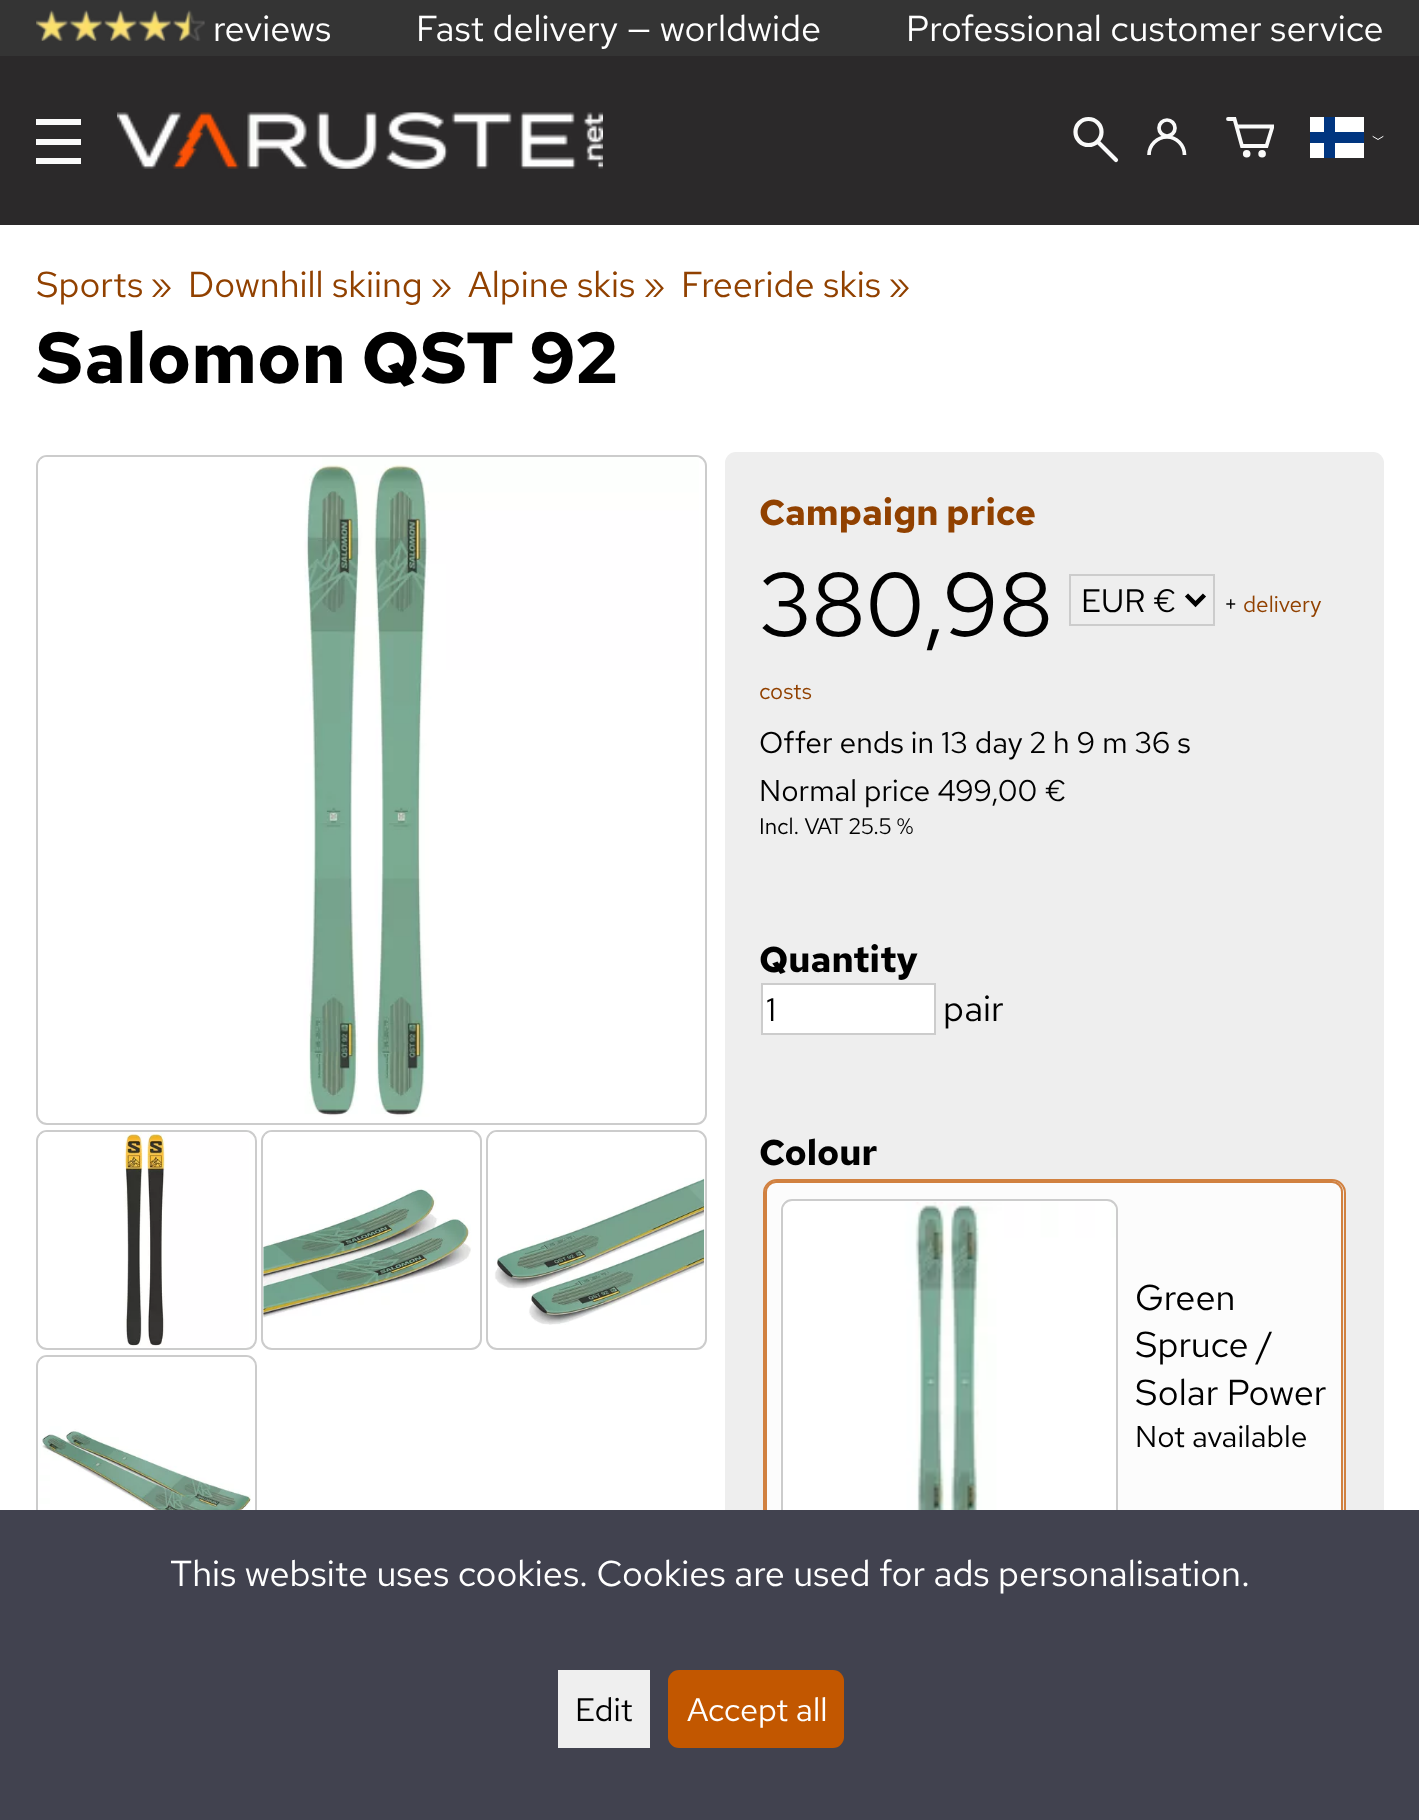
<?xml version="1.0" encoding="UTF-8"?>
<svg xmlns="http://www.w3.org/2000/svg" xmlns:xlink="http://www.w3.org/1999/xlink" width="1419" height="1820">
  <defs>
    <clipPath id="clip1"><rect x="1226" y="117" width="48" height="41" /></clipPath>
  </defs>
  <rect width="100%" height="100%" fill="#ffffff" />
  <rect width="1419" height="56" fill="#343434" />
  <image x="36" y="10" width="169" height="31" xlink:href="image1.png" />
  <rect y="56" width="1419" height="169" fill="#2b292a" />
  <rect x="36" y="119" width="45" height="6" fill="#fafafa" />
  <rect x="36" y="158" width="45" height="6" fill="#fafafa" />
  <rect x="36" y="139" width="45" height="6" fill="#fafafa" />
  <image x="117" y="112" width="486" height="57" xlink:href="image2.png" />
  <path d="M 1116 160 l -18 -18" fill="none" stroke="#fafafa" stroke-width="4.2" stroke-linecap="round" />
  <circle cx="1088.5" cy="132" r="13" fill="none" stroke="#fafafa" stroke-width="4.2" />
  <circle cx="1167" cy="128" r="8" fill="none" stroke="#fafafa" stroke-width="3.7" />
  <path d="M 1149 155 c 0 -10 8 -18 18 -18 c 9.5 0 17.5 8 17.5 18" fill="none" stroke="#fafafa" stroke-width="3.7" />
  <g clip-path="url(#clip1)">
    <path d="M 1236.5 126.5 h 36 l -6 19.5 h -24.5 l -7.5 -27 h -6.5" fill="none" stroke="#fafafa" stroke-width="3.8" stroke-linecap="round" />
  </g>
  <circle cx="1246.7" cy="153.7" r="1.9" fill="none" stroke="#fafafa" stroke-width="3.8" />
  <circle cx="1262.1" cy="153.7" r="1.9" fill="none" stroke="#fafafa" stroke-width="3.8" />
  <rect x="1310" y="117" width="54" height="41" fill="#ffffff" />
  <rect x="1310" y="132" width="54" height="11" fill="#003580" />
  <rect x="1324" y="117" width="11" height="41" fill="#003580" />
  <path d="M 1373 136.5 l 5 3 l 5 -3" fill="none" stroke="#fafafa" stroke-linecap="round" />
  <rect x="37" y="456" width="669" height="668" rx="10" fill="none" stroke="#cccccc" stroke-width="2" />
  <image x="39" y="457" width="660" height="660" xlink:href="image3.png" />
  <rect x="37" y="1131" width="219" height="218" rx="10" fill="none" stroke="#cccccc" stroke-width="2" />
  <image x="39" y="1132" width="210" height="215" xlink:href="image4.png" />
  <rect x="262" y="1131" width="219" height="218" rx="10" fill="none" stroke="#cccccc" stroke-width="2" />
  <image x="263" y="1132" width="211" height="186" xlink:href="image5.png" />
  <rect x="487" y="1131" width="219" height="218" rx="10" fill="none" stroke="#cccccc" stroke-width="2" />
  <image x="489" y="1132" width="216" height="193" xlink:href="image6.png" />
  <rect x="37" y="1356" width="219" height="218" rx="10" fill="none" stroke="#cccccc" stroke-width="2" />
  <image x="39" y="1357" width="212" height="153" xlink:href="image7.png" />
  <rect x="725" y="452" width="659" height="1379" rx="11" fill="#eeeeee" />
  <rect x="1070" y="575" width="144" height="50" fill="none" stroke="#cccccc" stroke-width="2" />
  <path d="M 1186.5 595 l 9 9 l 9 -9" fill="none" stroke="#000000" stroke-width="4.5" />
  <rect x="762" y="984" width="173" height="50" fill="#ffffff" stroke="#cccccc" stroke-width="2" />
  <rect x="766" y="1182" width="576" height="367" rx="10" fill="#fcfcfc" stroke="#d18140" stroke-width="2" />
  <path d="M 791 1199 h 315 c 4 0 7 4 7 9 v 315 c 0 5 -3 9 -7 9 h -315 c -6 0 -11 -4 -11 -9 v -315 c 0 -5 5 -9 11 -9 z" fill="#ffffff" />
  <rect x="782" y="1200" width="335" height="336" rx="10" fill="none" stroke="#cccccc" stroke-width="2" />
  <image x="783" y="1202" width="333" height="308" xlink:href="image8.png" />
  <rect x="764" y="1180" width="581" height="372" rx="13" fill="none" stroke="#d18140" stroke-width="2" />
  <rect y="1510" width="1419" height="310" fill="#41424f" />
  <rect x="558" y="1670" width="92" height="78" fill="#efefef" />
  <rect x="668" y="1670" width="176" height="78" rx="11" fill="#c25700" />
  <text x="213" y="41" style="font-family: Red Hat Text; font-size: 36px; fill: #ffffff">reviews</text>
  <text x="416" y="41" style="font-family: Red Hat Text; font-size: 36px; fill: #ffffff">Fast delivery — worldwide</text>
  <text x="906" y="41" style="font-family: Red Hat Text; font-size: 36px; fill: #ffffff">Professional customer service</text>
  <text x="36" y="297" style="font-family: Red Hat Text; font-size: 36px; fill: #914100">Sports</text>
  <text x="150" y="297" style="font-family: Red Hat Text; font-size: 36px; fill: #914100">»</text>
  <text x="188" y="297" style="font-family: Red Hat Text; font-size: 36px; fill: #914100">Downhill skiing</text>
  <text x="430" y="297" style="font-family: Red Hat Text; font-size: 36px; fill: #914100">»</text>
  <text x="468" y="297" style="font-family: Red Hat Text; font-size: 36px; fill: #914100">Alpine skis</text>
  <text x="643" y="297" style="font-family: Red Hat Text; font-size: 36px; fill: #914100">»</text>
  <text x="681" y="297" style="font-family: Red Hat Text; font-size: 36px; fill: #914100">Freeride skis</text>
  <text x="888" y="297" style="font-family: Red Hat Text; font-size: 36px; fill: #914100">»</text>
  <text x="36" y="383" style="font-family: Red Hat Text; font-size: 72px; font-weight: bold; fill: #000000">Salomon QST 92</text>
  <text x="759" y="525" style="font-family: Red Hat Text; font-size: 36px; font-weight: bold; fill: #914100">Campaign price</text>
  <text x="759" y="636" style="font-family: Red Hat Text; font-size: 90px; fill: #000000">380,98</text>
  <text x="1081" y="612" style="font-family: Red Hat Text; font-size: 32.5px; fill: #000000">EUR €</text>
  <text x="1224" y="612" style="font-family: Red Hat Text; font-size: 22.5px; fill: #000000">+</text>
  <text x="1243" y="612" style="font-family: Red Hat Text; font-size: 22.5px; fill: #914100">delivery</text>
  <text x="759" y="699" style="font-family: Red Hat Text; font-size: 22.5px; fill: #914100">costs</text>
  <text x="759" y="753" style="font-family: Red Hat Text; font-size: 30px; fill: #000000">Offer ends in 13 day 2 h 9 m 36 s</text>
  <text x="759" y="801" style="font-family: Red Hat Text; font-size: 30px; fill: #000000">Normal price 499,00 €</text>
  <text x="759" y="834" style="font-family: Red Hat Text; font-size: 22.5px; fill: #000000">Incl. VAT 25.5 %</text>
  <text x="759" y="972" style="font-family: Red Hat Text; font-size: 36px; font-weight: bold; fill: #000000">Quantity</text>
  <text x="766" y="1021" style="font-family: Red Hat Text; font-size: 32.5px; fill: #000000">1</text>
  <text x="943" y="1021" style="font-family: Red Hat Text; font-size: 36px; fill: #000000">pair</text>
  <text x="759" y="1165" style="font-family: Red Hat Text; font-size: 36px; font-weight: bold; fill: #000000">Colour</text>
  <text x="1135" y="1310" style="font-family: Red Hat Text; font-size: 36px; fill: #000000">Green</text>
  <text x="1135" y="1357" style="font-family: Red Hat Text; font-size: 36px; fill: #000000">Spruce /</text>
  <text x="1135" y="1405" style="font-family: Red Hat Text; font-size: 36px; fill: #000000">Solar Power</text>
  <text x="1135" y="1447" style="font-family: Red Hat Text; font-size: 30px; fill: #000000">Not available</text>
  <text x="170" y="1586" style="font-family: Red Hat Text; font-size: 36px; fill: #ffffff">This website uses cookies. Cookies are used for ads personalisation.</text>
  <text x="575" y="1721" style="font-family: Red Hat Text; font-size: 32.5px; fill: #000000">Edit</text>
  <text x="687" y="1721" style="font-family: Red Hat Text; font-size: 32.5px; fill: #ffffff">Accept all</text>
</svg>
